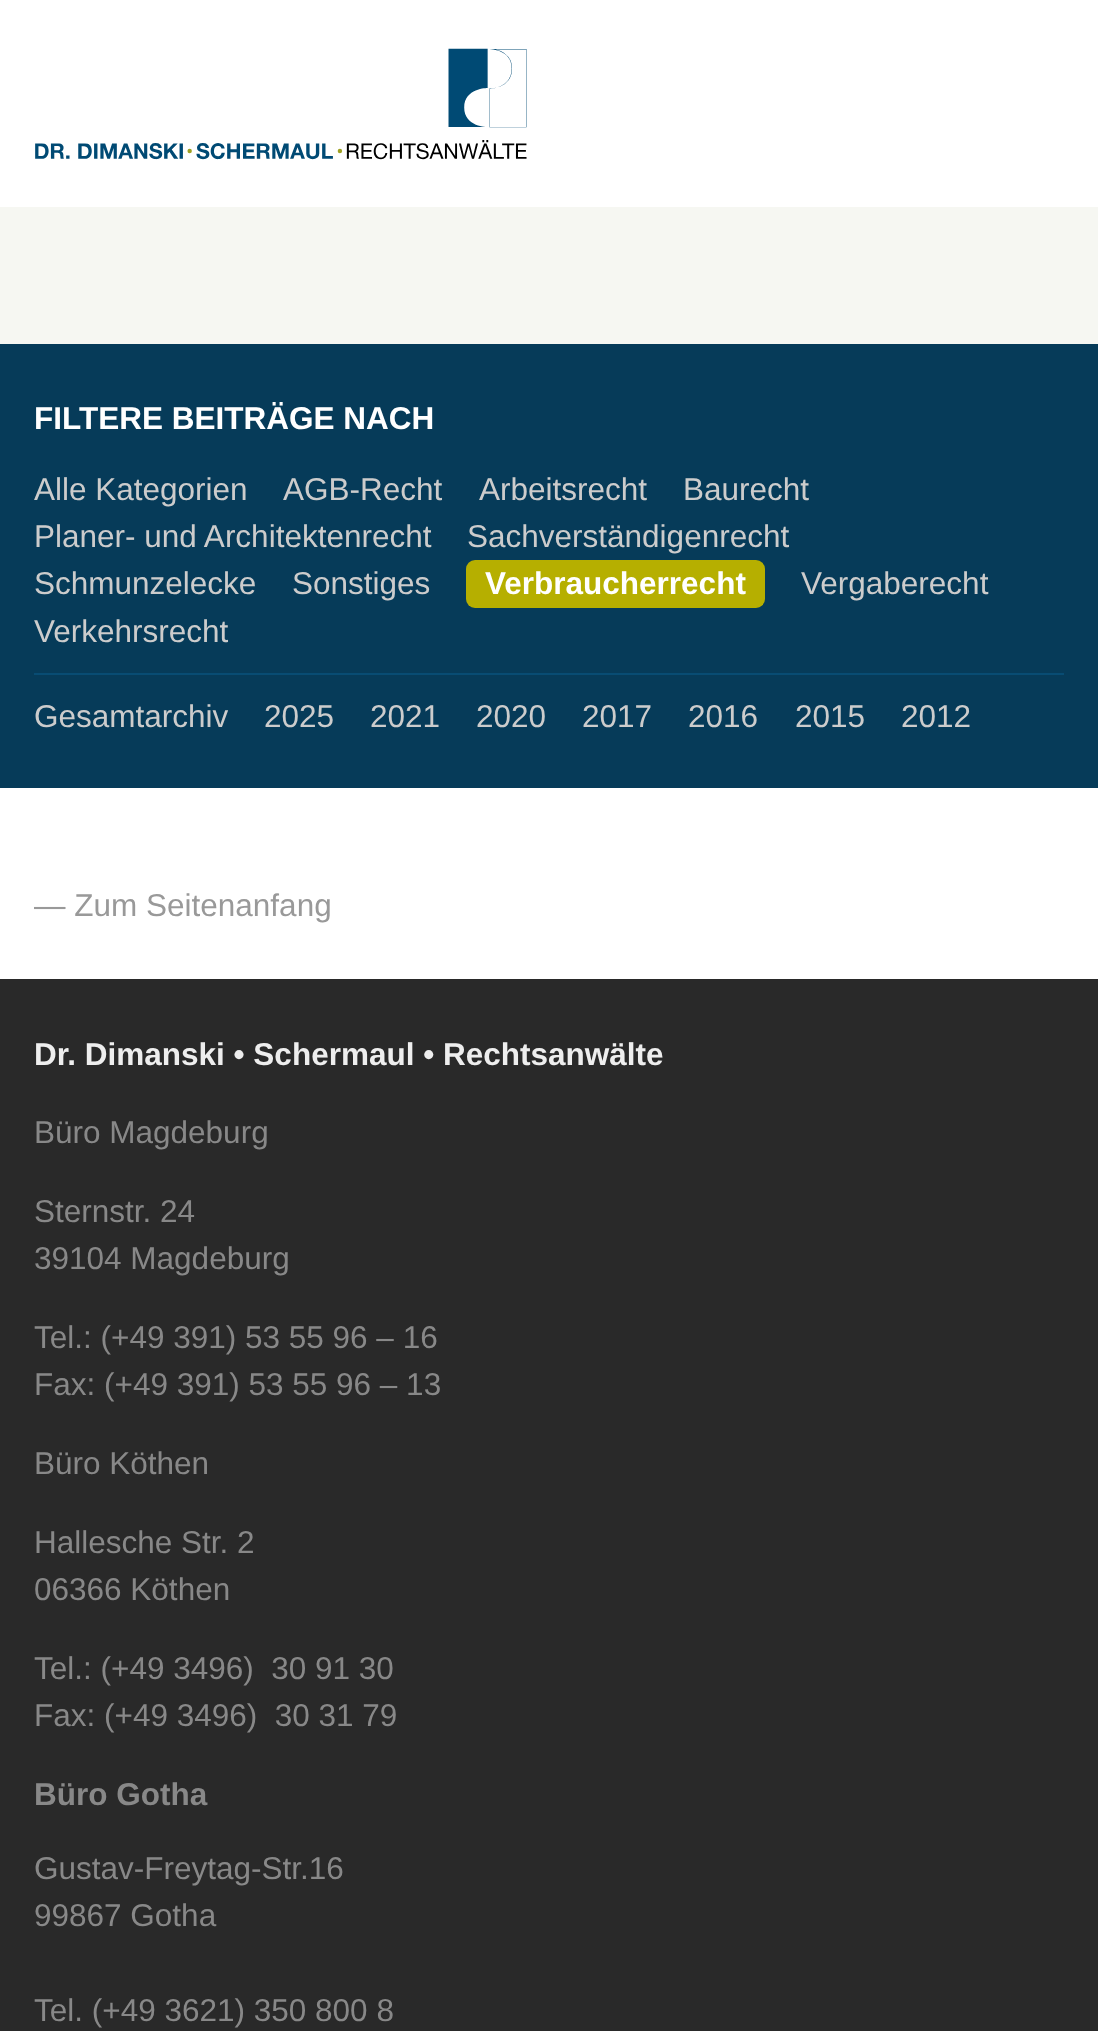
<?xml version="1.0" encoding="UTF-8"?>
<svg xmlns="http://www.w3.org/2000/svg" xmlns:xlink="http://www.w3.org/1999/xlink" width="1098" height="2031">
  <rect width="100%" height="100%" fill="#ffffff" />
  <image x="35" y="48" width="492" height="112" xlink:href="image1.png" />
  <rect y="207" width="1098" height="137" fill="#f6f7f2" />
  <rect y="344" width="1098" height="444" fill="#063b59" />
  <rect x="34" y="673" width="1030" height="2" fill="#084c73" />
  <rect x="466" y="560" width="299" height="48" rx="9" fill="#b6af00" />
  <rect y="979" width="1098" height="1052" fill="#292929" />
  <text x="34" y="429" style="font-family: Liberation Sans; font-size: 31.5px; font-weight: bold; fill: #ffffff">FILTERE BEITRÄGE NACH</text>
  <text x="34" y="500" style="font-family: Liberation Sans; font-size: 31.5px; fill: #cccccc">Alle Kategorien</text>
  <text x="283" y="500" style="font-family: Liberation Sans; font-size: 31.5px; fill: #cccccc">AGB-Recht</text>
  <text x="479" y="500" style="font-family: Liberation Sans; font-size: 31.5px; fill: #cccccc">Arbeitsrecht</text>
  <text x="683" y="500" style="font-family: Liberation Sans; font-size: 31.5px; fill: #cccccc">Baurecht</text>
  <text x="34" y="547" style="font-family: Liberation Sans; font-size: 31.5px; fill: #cccccc">Planer- und Architektenrecht</text>
  <text x="467" y="547" style="font-family: Liberation Sans; font-size: 31.5px; fill: #cccccc">Sachverständigenrecht</text>
  <text x="34" y="594" style="font-family: Liberation Sans; font-size: 31.5px; fill: #cccccc">Schmunzelecke</text>
  <text x="292" y="594" style="font-family: Liberation Sans; font-size: 31.5px; fill: #cccccc">Sonstiges</text>
  <text x="485" y="594" style="font-family: Liberation Sans; font-size: 31.5px; font-weight: bold; fill: #ffffff">Verbraucherrecht</text>
  <text x="801" y="594" style="font-family: Liberation Sans; font-size: 31.5px; fill: #cccccc">Vergaberecht</text>
  <text x="34" y="642" style="font-family: Liberation Sans; font-size: 31.5px; fill: #cccccc">Verkehrsrecht</text>
  <text x="34" y="727" style="font-family: Liberation Sans; font-size: 31.5px; fill: #cccccc">Gesamtarchiv</text>
  <text x="264" y="727" style="font-family: Liberation Sans; font-size: 31.5px; fill: #cccccc">2025</text>
  <text x="370" y="727" style="font-family: Liberation Sans; font-size: 31.5px; fill: #cccccc">2021</text>
  <text x="476" y="727" style="font-family: Liberation Sans; font-size: 31.5px; fill: #cccccc">2020</text>
  <text x="582" y="727" style="font-family: Liberation Sans; font-size: 31.5px; fill: #cccccc">2017</text>
  <text x="688" y="727" style="font-family: Liberation Sans; font-size: 31.5px; fill: #cccccc">2016</text>
  <text x="795" y="727" style="font-family: Liberation Sans; font-size: 31.5px; fill: #cccccc">2015</text>
  <text x="901" y="727" style="font-family: Liberation Sans; font-size: 31.5px; fill: #cccccc">2012</text>
  <text x="34" y="916" style="font-family: Liberation Sans; font-size: 31.5px; fill: #999999">— Zum Seitenanfang</text>
  <text x="34" y="1065" style="font-family: Liberation Sans; font-size: 31.5px; font-weight: bold; fill: #eeeeee">Dr. Dimanski • Schermaul • Rechtsanwälte</text>
  <text x="34" y="1143" style="font-family: Liberation Sans; font-size: 31.5px; fill: #888888">Büro Magdeburg</text>
  <text x="34" y="1222" style="font-family: Liberation Sans; font-size: 31.5px; fill: #888888">Sternstr. 24</text>
  <text x="34" y="1269" style="font-family: Liberation Sans; font-size: 31.5px; fill: #888888">39104 Magdeburg</text>
  <text x="34" y="1348" style="font-family: Liberation Sans; font-size: 31.5px; fill: #888888">Tel.: (+49 391) 53 55 96 – 16</text>
  <text x="34" y="1395" style="font-family: Liberation Sans; font-size: 31.5px; fill: #888888">Fax: (+49 391) 53 55 96 – 13</text>
  <text x="34" y="1474" style="font-family: Liberation Sans; font-size: 31.5px; fill: #888888">Büro Köthen</text>
  <text x="34" y="1553" style="font-family: Liberation Sans; font-size: 31.5px; fill: #888888">Hallesche Str. 2</text>
  <text x="34" y="1600" style="font-family: Liberation Sans; font-size: 31.5px; fill: #888888">06366 Köthen</text>
  <text x="34" y="1679" style="font-family: Liberation Sans; font-size: 31.5px; fill: #888888" xml:space="preserve">Tel.: (+49 3496)  30 91 30</text>
  <text x="34" y="1726" style="font-family: Liberation Sans; font-size: 31.5px; fill: #888888" xml:space="preserve">Fax: (+49 3496)  30 31 79</text>
  <text x="34" y="1805" style="font-family: Liberation Sans; font-size: 31.5px; font-weight: bold; fill: #888888">Büro Gotha</text>
  <text x="34" y="1879" style="font-family: Liberation Sans; font-size: 31.5px; fill: #888888">Gustav-Freytag-Str.16</text>
  <text x="34" y="1926" style="font-family: Liberation Sans; font-size: 31.5px; fill: #888888">99867 Gotha</text>
  <text x="34" y="2021" style="font-family: Liberation Sans; font-size: 31.5px; fill: #888888">Tel. (+49 3621) 350 800 8</text>
</svg>
